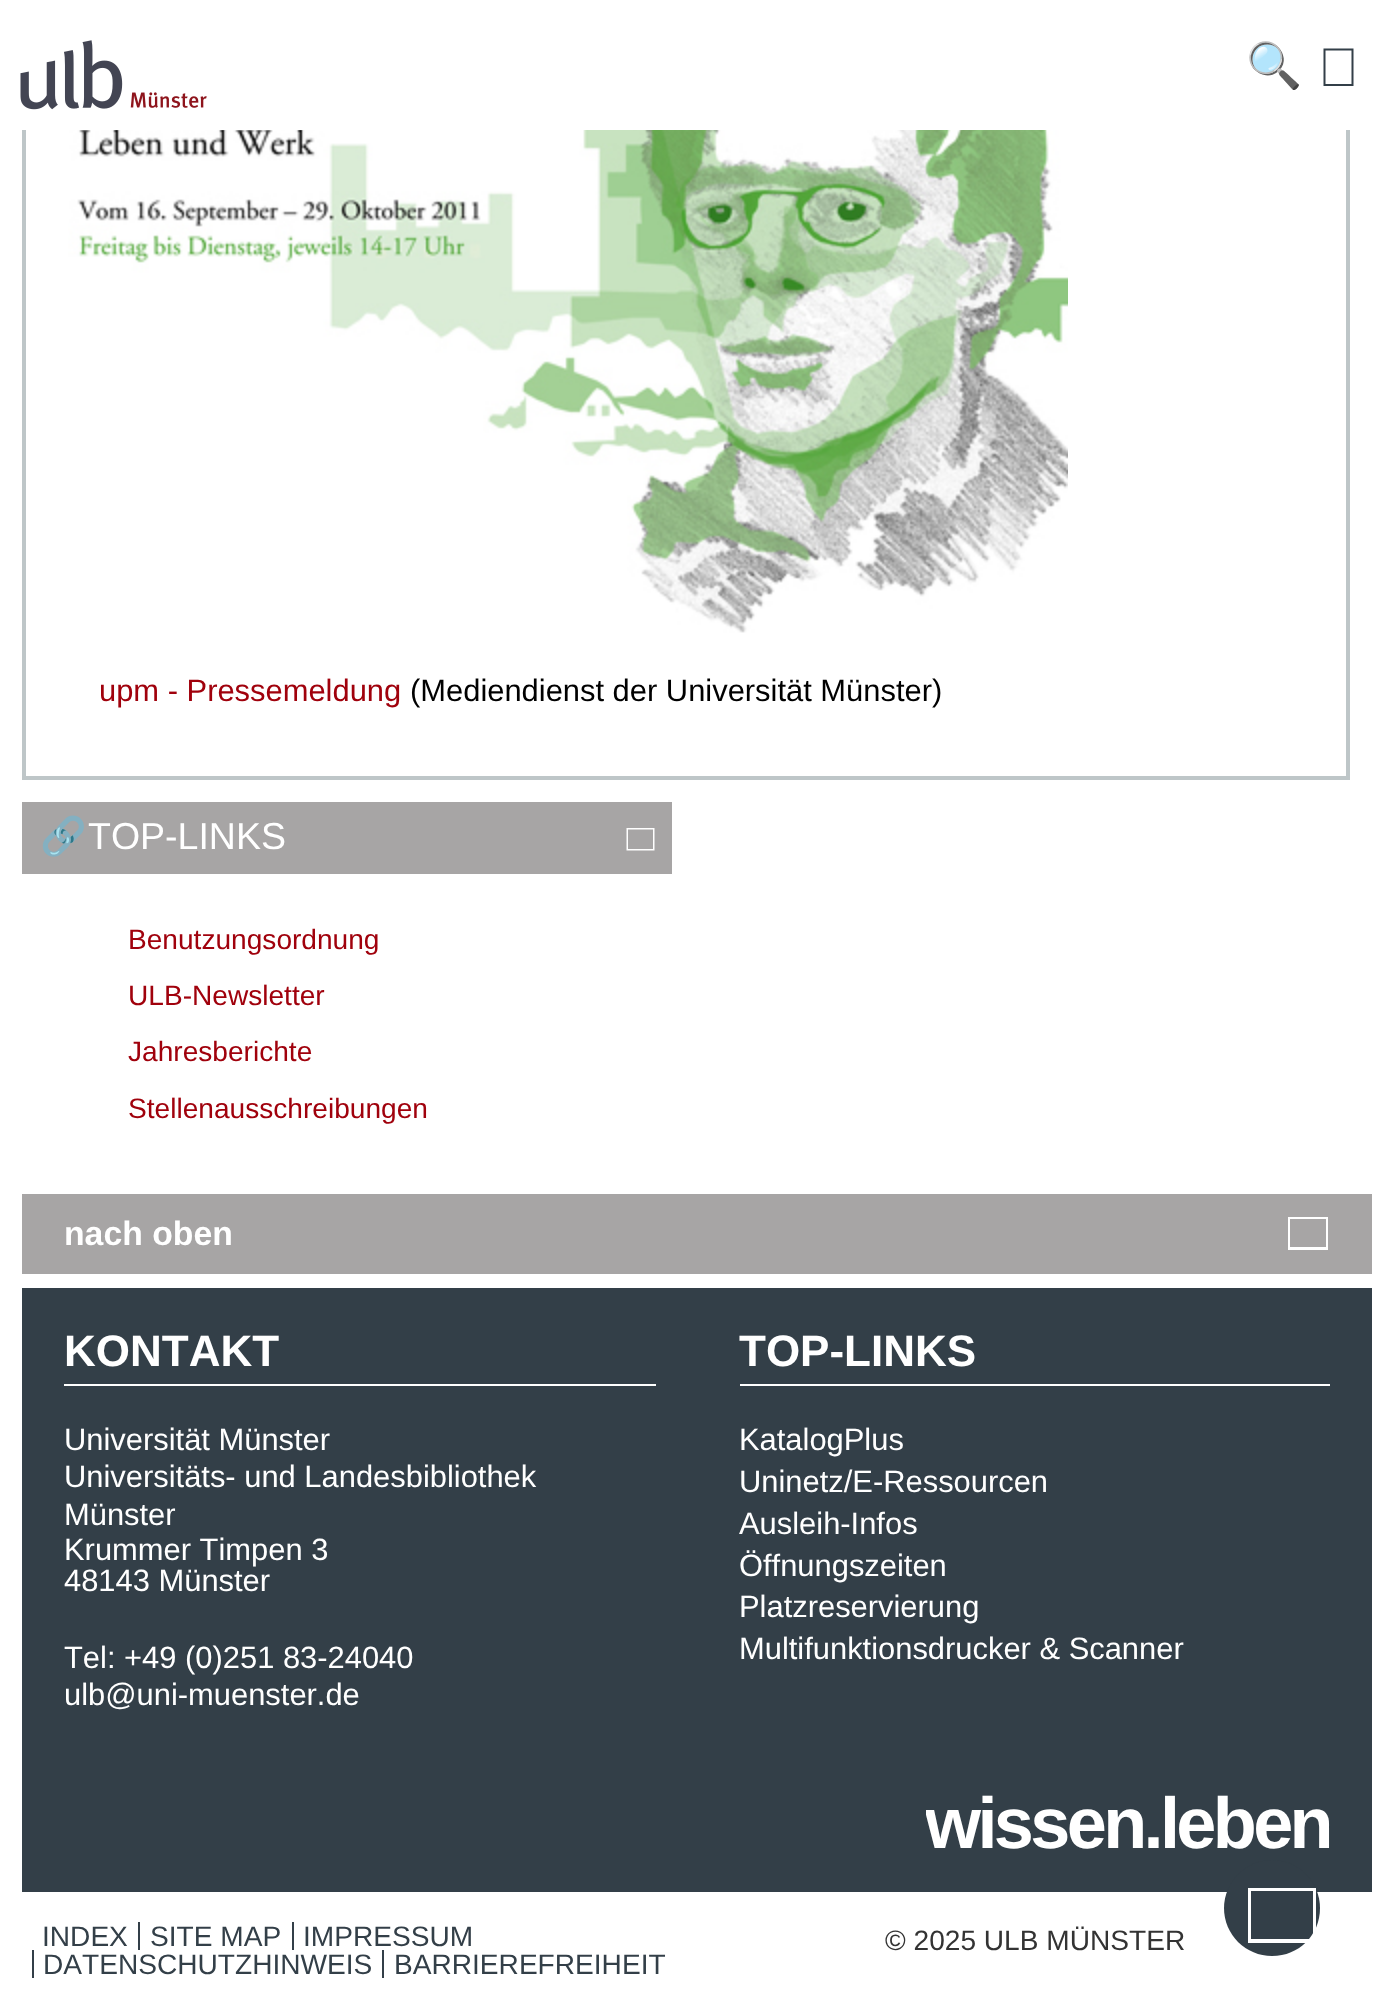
<?xml version="1.0" encoding="UTF-8"?>
<svg xmlns="http://www.w3.org/2000/svg" xmlns:xlink="http://www.w3.org/1999/xlink" width="1390" height="1995">
  <style>*{font-kerning:none!important;font-variant-ligatures:none!important}</style>
  <defs>
    <clipPath id="clip1"><rect x="926" y="1788" width="404" height="72" /></clipPath>
  </defs>
  <rect width="100%" height="100%" fill="#ffffff" />
  <rect x="24" y="-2" width="1324" height="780" fill="none" stroke="#bec6c8" stroke-width="4" />
  <rect x="22" width="1328" height="130" fill="#ffffff" />
  <image x="20" y="40" width="187" height="70" xlink:href="image1.png" />
  <path d="M 1323.5 48.5 h 30 v 37.5 h -30 z m 2 2 v 33.5 h 26 v -33.5 z" fill="#333f48" />
  <image x="68" y="130" width="1000" height="503" xlink:href="image2.png" />
  <rect x="22" y="1288" width="1350" height="604" fill="#333f48" />
  <path d="M 1224 1908 c 0 -26 22 -48 48 -48 c 27 0 48 22 48 48 c 0 27 -21 48 -48 48 c -26 0 -48 -21 -48 -48 z" fill="#333f48" />
  <path d="M 1248 1943 v -55 h 68 v 55 z m 3 -4 h 62 v -48 h -62 z" fill="#ffffff" />
  <rect x="22" y="802" width="650" height="72" fill="#a7a5a5" />
  <path d="M 626.5 850.5 v -22.5 h 28 v 22.5 z m 1.5 -1.5 h 25 v -19.5 h -25 z" fill="#ffffff" />
  <rect x="22" y="1194" width="1350" height="80" fill="#a7a5a5" />
  <path d="M 1288 1250 v -33 h 40 v 33 z m 2 -3 h 36 v -28 h -36 z" fill="#ffffff" />
  <rect x="64" y="1384" width="592" height="2" fill="#ffffff" />
  <rect x="740" y="1384" width="590" height="2" fill="#ffffff" />
  <rect x="138" y="1922" width="2" height="28" fill="#333f48" />
  <rect x="292" y="1922" width="2" height="28" fill="#333f48" />
  <rect x="32" y="1950" width="2" height="28" fill="#333f48" />
  <rect x="382" y="1950" width="2" height="28" fill="#333f48" />
  <text x="1246" y="81" style="font-family: Noto Color Emoji; font-size: 45px; fill: #333f48">🔍</text>
  <text x="68" y="701" style="font-family: Liberation Sans; font-size: 30.9px; fill: #a0010c">‍</text>
  <text x="99" y="701" style="font-family: Liberation Sans; font-size: 30.9px; fill: #a0010c">upm - Pressemeldung</text>
  <text x="410" y="701" style="font-family: Liberation Sans; font-size: 30.9px; fill: #000000">(Mediendienst der Universität Münster)</text>
  <text x="40" y="849" style="font-family: Noto Color Emoji; font-size: 37.5px; fill: #ffffff">🔗</text>
  <text x="88" y="849" style="font-family: Liberation Sans; font-size: 37.5px; fill: #ffffff">TOP-LINKS</text>
  <text x="100" y="949" style="font-family: Liberation Sans; font-size: 28.1px; fill: #a0010c">‍</text>
  <text x="128" y="949" style="font-family: Liberation Sans; font-size: 28.1px; fill: #a0010c">Benutzungsordnung</text>
  <text x="100" y="1005" style="font-family: Liberation Sans; font-size: 28.1px; fill: #a0010c">‍</text>
  <text x="128" y="1005" style="font-family: Liberation Sans; font-size: 28.1px; fill: #a0010c">ULB-Newsletter</text>
  <text x="100" y="1061" style="font-family: Liberation Sans; font-size: 28.1px; fill: #a0010c">‍</text>
  <text x="128" y="1061" style="font-family: Liberation Sans; font-size: 28.1px; fill: #a0010c">Jahresberichte</text>
  <text x="100" y="1118" style="font-family: Liberation Sans; font-size: 28.1px; fill: #a0010c">‍</text>
  <text x="128" y="1118" style="font-family: Liberation Sans; font-size: 28.1px; fill: #a0010c">Stellenausschreibungen</text>
  <text x="64" y="1245" style="font-family: Liberation Sans; font-size: 33.75px; font-weight: bold; fill: #ffffff">nach oben</text>
  <text x="64" y="1366" style="font-family: Liberation Sans; font-size: 44px; font-weight: bold; fill: #ffffff">KONTAKT</text>
  <text x="64" y="1450" style="font-family: Liberation Sans; font-size: 30.9px; fill: #ffffff">Universität Münster</text>
  <text x="64" y="1487" style="font-family: Liberation Sans; font-size: 30.9px; fill: #ffffff">Universitäts- und Landesbibliothek</text>
  <text x="64" y="1525" style="font-family: Liberation Sans; font-size: 30.9px; fill: #ffffff">Münster</text>
  <text x="64" y="1560" style="font-family: Liberation Sans; font-size: 30.9px; fill: #ffffff">Krummer Timpen 3</text>
  <text x="64" y="1591" style="font-family: Liberation Sans; font-size: 30.9px; fill: #ffffff">48143 Münster</text>
  <text x="64" y="1668" style="font-family: Liberation Sans; font-size: 30.9px; fill: #ffffff">Tel: +49 (0)251 83-24040</text>
  <text x="64" y="1705" style="font-family: Liberation Sans; font-size: 30.9px; fill: #ffffff">ulb@uni-muenster.de</text>
  <text x="739" y="1366" style="font-family: Liberation Sans; font-size: 44px; font-weight: bold; fill: #ffffff">TOP-LINKS</text>
  <text x="739" y="1450" style="font-family: Liberation Sans; font-size: 30.9px; fill: #ffffff">KatalogPlus</text>
  <text x="739" y="1492" style="font-family: Liberation Sans; font-size: 30.9px; fill: #ffffff">Uninetz/E-Ressourcen</text>
  <text x="739" y="1534" style="font-family: Liberation Sans; font-size: 30.9px; fill: #ffffff">Ausleih-Infos</text>
  <text x="739" y="1576" style="font-family: Liberation Sans; font-size: 30.9px; fill: #ffffff">Öffnungszeiten</text>
  <text x="739" y="1617" style="font-family: Liberation Sans; font-size: 30.9px; fill: #ffffff">Platzreservierung</text>
  <text x="739" y="1659" style="font-family: Liberation Sans; font-size: 30.9px; fill: #ffffff">Multifunktionsdrucker &amp; Scanner</text>
  <g clip-path="url(#clip1)">
    <text x="925" y="1848" style="font-family: Liberation Sans; font-size: 72px; font-weight: bold; letter-spacing: -3.6px; fill: #ffffff">wissen.leben</text>
  </g>
  <text x="42" y="1946" style="font-family: Liberation Sans; font-size: 28.1px; fill: #333f48">INDEX</text>
  <text x="150" y="1946" style="font-family: Liberation Sans; font-size: 28.1px; fill: #333f48">SITE MAP</text>
  <text x="303" y="1946" style="font-family: Liberation Sans; font-size: 28.1px; fill: #333f48">IMPRESSUM</text>
  <text x="43" y="1974" style="font-family: Liberation Sans; font-size: 28.1px; fill: #333f48">DATENSCHUTZHINWEIS</text>
  <text x="394" y="1974" style="font-family: Liberation Sans; font-size: 28.1px; fill: #333f48">BARRIEREFREIHEIT</text>
  <text x="885" y="1950" style="font-family: Liberation Sans; font-size: 28.1px; fill: #333333">© 2025 ULB MÜNSTER</text>
</svg>
